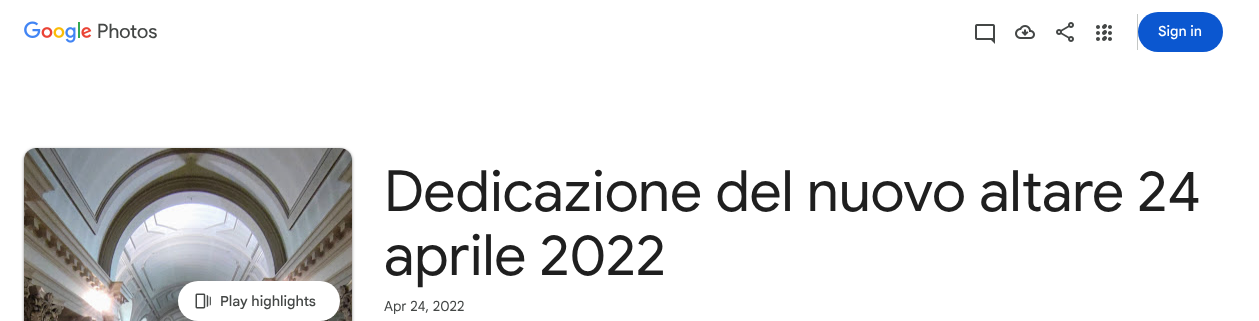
<?xml version="1.0" encoding="UTF-8"?>
<svg xmlns="http://www.w3.org/2000/svg" xmlns:xlink="http://www.w3.org/1999/xlink" width="1259" height="321">
  <rect width="100%" height="100%" fill="#ffffff" />
  <image x="24" y="21" width="68" height="22" xlink:href="image1.png" />
  <image x="975" y="24" width="20" height="20" xlink:href="image2.png" />
  <image x="1015" y="25" width="20" height="14" xlink:href="image3.png" />
  <image x="1056" y="22" width="18" height="20" xlink:href="image4.png" />
  <image x="1103" y="24" width="4" height="16" xlink:href="image5.png" />
  <rect x="1137" y="14" width="1" height="36" fill="#c4c7c5" />
  <rect x="23" y="148" width="330" height="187" rx="13" fill="#000000" fill-opacity="0.15" filter="blur(1.5px)" />
  <rect x="24" y="149" width="328" height="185" rx="12" fill="#000000" fill-opacity="0.3" filter="blur(1px)" />
  <image x="24" y="148" width="328" height="173" xlink:href="image6.png" />
  <rect x="178" y="281" width="162" height="40" rx="20" fill="#ffffff" />
  <image x="195" y="293" width="16" height="16" xlink:href="image7.png" />
  <image x="1096" y="25" width="16" height="16" xlink:href="image8.png" />
  <rect x="1138" y="12" width="85" height="40" rx="20" fill="#0b57d0" />
  <text x="97" y="38" style="font-family: Product Sans; font-size: 20px; fill: #444746">Photos</text>
  <text x="220" y="306" style="font-family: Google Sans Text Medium; font-size: 14px; font-weight: 500; fill: #444746">Play highlights</text>
  <text x="384" y="211" style="font-family: Google Sans; font-size: 57px; fill: #1f1f1f">Dedicazione del nuovo altare 24</text>
  <text x="384" y="275" style="font-family: Google Sans; font-size: 57px; fill: #1f1f1f">aprile 2022</text>
  <text x="384" y="311" style="font-family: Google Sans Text; font-size: 14px; fill: #444746">Apr 24, 2022</text>
  <text x="1158" y="36" style="font-family: Google Sans Text Medium; font-size: 14px; font-weight: 500; fill: #ffffff">Sign in</text>
</svg>
